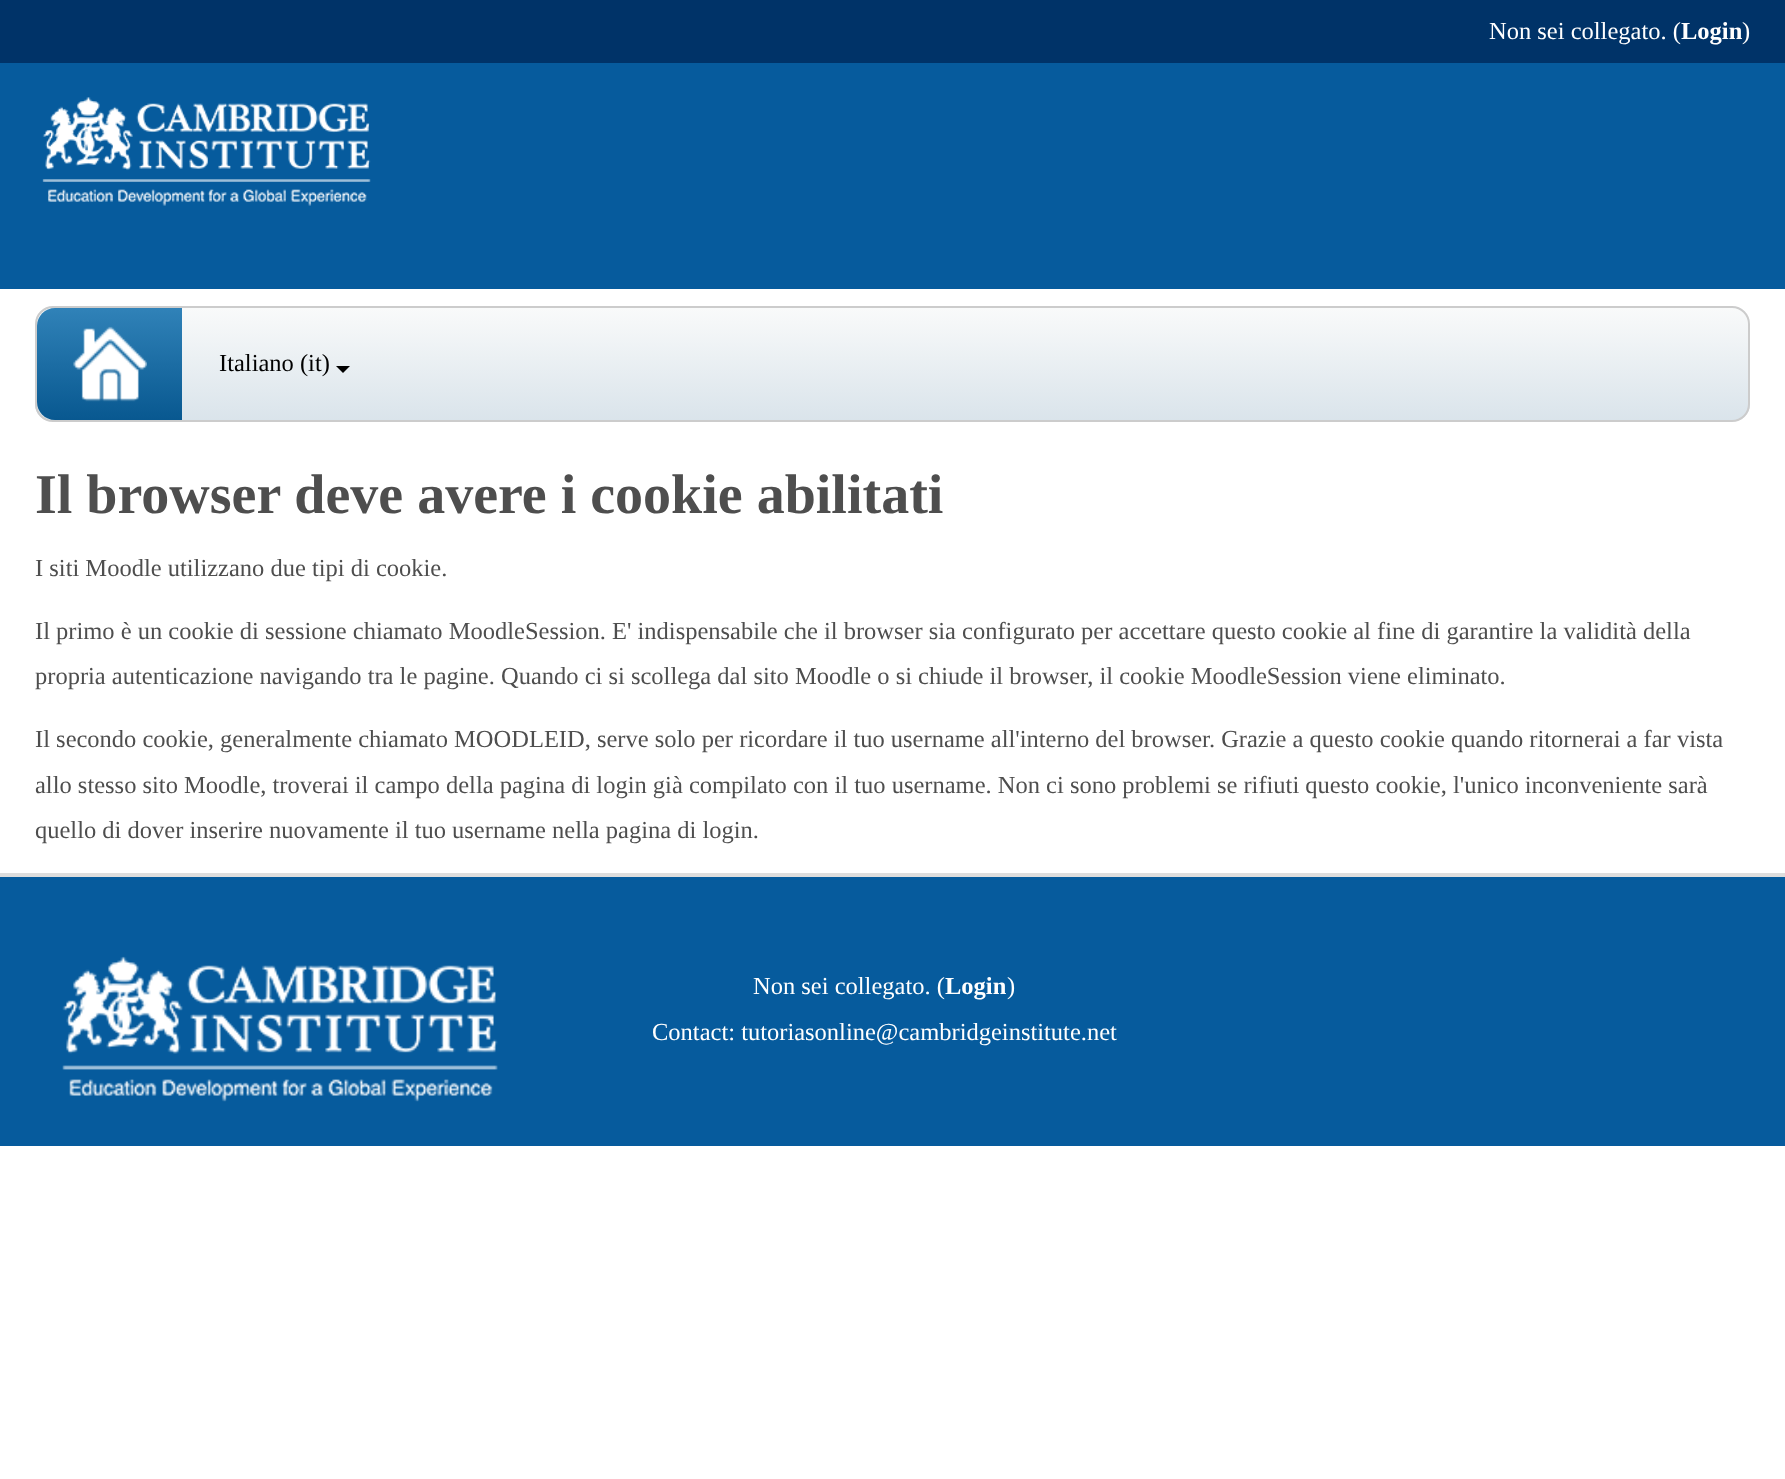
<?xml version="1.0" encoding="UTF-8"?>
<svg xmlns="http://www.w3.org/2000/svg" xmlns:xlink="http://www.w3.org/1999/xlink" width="1785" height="1479">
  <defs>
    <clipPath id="clip1"><rect x="35" y="306" width="1715" height="116" rx="18" /></clipPath>
    <linearGradient id="g1" gradientUnits="userSpaceOnUse" x1="893" y1="308" x2="893" y2="420"><stop offset="0" stop-color="#f9fafa" /><stop offset="1" stop-color="#dae4eb" /></linearGradient>
    <linearGradient id="g2" gradientUnits="userSpaceOnUse" x1="109" y1="308" x2="109" y2="420"><stop offset="0" stop-color="#3082b8" /><stop offset="1" stop-color="#085890" /></linearGradient>
  </defs>
  <rect width="100%" height="100%" fill="#ffffff" />
  <rect y="63" width="1785" height="226" fill="#065b9d" />
  <rect width="1785" height="63" fill="#003368" />
  <image x="42" y="97" width="329" height="109" xlink:href="image1.png" />
  <g clip-path="url(#clip1)">
    <rect x="35" y="308" width="1715" height="112" fill="url(#g1)" />
  </g>
  <rect x="36" y="307" width="1713" height="114" rx="17" fill="none" stroke="#cccccc" stroke-width="2" />
  <path d="M 55 308 h 127 v 112 h -127 c -10 0 -18 -8 -18 -18 v -76 c 0 -10 8 -18 18 -18 z" fill="url(#g2)" />
  <image x="73" y="326" width="74" height="76" xlink:href="image2.png" />
  <path d="M 336 366 h 14 l -7 7 z" fill="#000000" />
  <rect y="877" width="1785" height="269" fill="#065b9d" />
  <rect y="873" width="1785" height="4" fill="#dddddd" />
  <image x="62" y="956" width="436" height="146" xlink:href="image3.png" />
  <text x="1489" y="39" style="font-family: Liberation Serif; font-size: 24.5px; fill: #ffffff">Non sei collegato. (</text>
  <text x="1681" y="39" style="font-family: Liberation Serif; font-size: 24.5px; font-weight: bold; fill: #ffffff">Login</text>
  <text x="1742" y="39" style="font-family: Liberation Serif; font-size: 24.5px; fill: #ffffff">)</text>
  <text x="219" y="371" style="font-family: Liberation Serif; font-size: 24.5px; fill: #000000">Italiano (it)</text>
  <text x="35" y="513" style="font-family: Liberation Serif; font-size: 56px; font-weight: bold; fill: #4e4e4e">Il browser deve avere i cookie abilitati</text>
  <text x="35" y="576" style="font-family: Liberation Serif; font-size: 24.5px; fill: #4e4e4e">I siti Moodle utilizzano due tipi di cookie.</text>
  <text x="35" y="639" style="font-family: Liberation Serif; font-size: 24.5px; fill: #4e4e4e">Il primo è un cookie di sessione chiamato MoodleSession. E' indispensabile che il browser sia configurato per accettare questo cookie al fine di garantire la validità della</text>
  <text x="35" y="684" style="font-family: Liberation Serif; font-size: 24.5px; fill: #4e4e4e">propria autenticazione navigando tra le pagine. Quando ci si scollega dal sito Moodle o si chiude il browser, il cookie MoodleSession viene eliminato.</text>
  <text x="35" y="747" style="font-family: Liberation Serif; font-size: 24.5px; fill: #4e4e4e">Il secondo cookie, generalmente chiamato MOODLEID, serve solo per ricordare il tuo username all'interno del browser. Grazie a questo cookie quando ritornerai a far vista</text>
  <text x="35" y="793" style="font-family: Liberation Serif; font-size: 24.5px; fill: #4e4e4e">allo stesso sito Moodle, troverai il campo della pagina di login già compilato con il tuo username. Non ci sono problemi se rifiuti questo cookie, l'unico inconveniente sarà</text>
  <text x="35" y="838" style="font-family: Liberation Serif; font-size: 24.5px; fill: #4e4e4e">quello di dover inserire nuovamente il tuo username nella pagina di login.</text>
  <text x="753" y="994" style="font-family: Liberation Serif; font-size: 24.5px; fill: #ffffff">Non sei collegato. (</text>
  <text x="945" y="994" style="font-family: Liberation Serif; font-size: 24.5px; font-weight: bold; fill: #ffffff">Login</text>
  <text x="1007" y="994" style="font-family: Liberation Serif; font-size: 24.5px; fill: #ffffff">)</text>
  <text x="652" y="1040" style="font-family: Liberation Serif; font-size: 24.5px; fill: #ffffff">Contact: tutoriasonline@cambridgeinstitute.net</text>
</svg>
